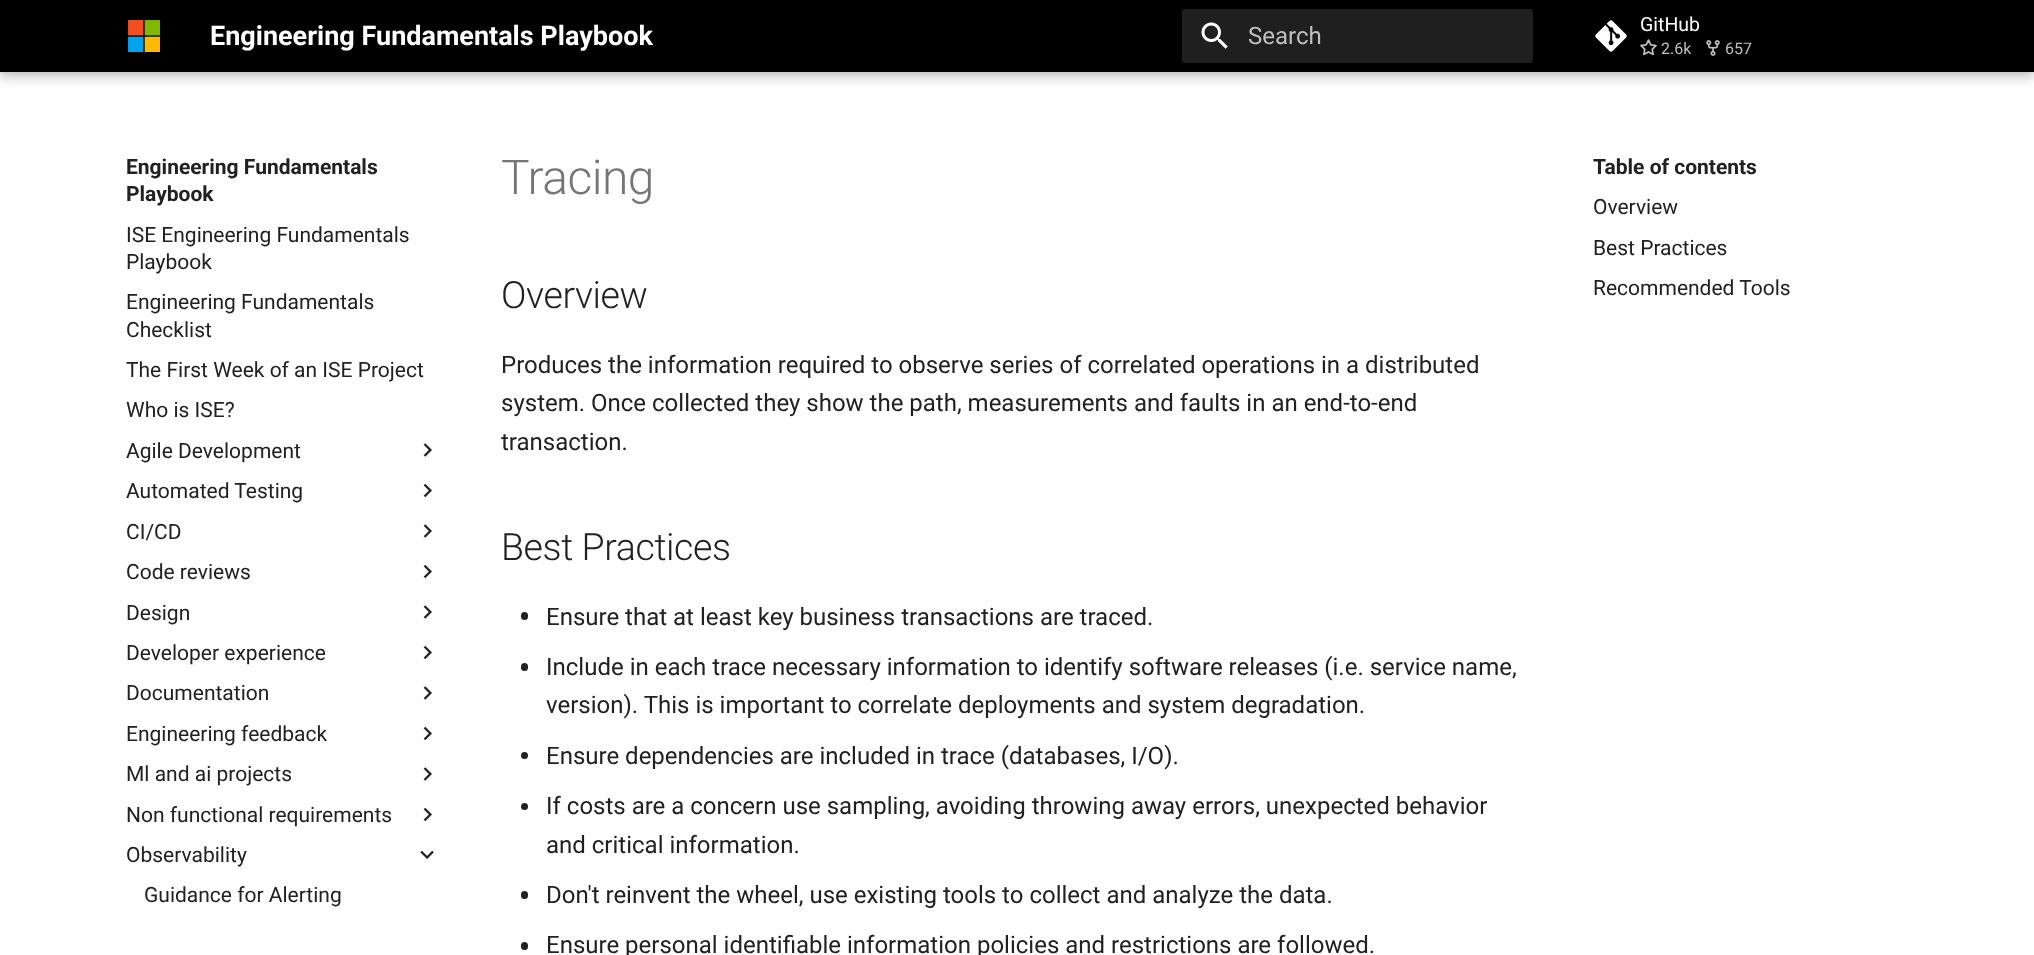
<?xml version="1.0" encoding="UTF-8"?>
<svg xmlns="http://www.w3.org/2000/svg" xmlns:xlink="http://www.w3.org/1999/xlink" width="2034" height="955">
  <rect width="100%" height="100%" fill="#ffffff" />
  <rect y="6" width="2034" height="72" fill="#000000" fill-opacity="0.2" filter="blur(6px)" />
  <rect width="2034" height="72" fill="#000000" fill-opacity="0.1" filter="blur(3px)" />
  <rect width="2034" height="72" fill="#000000" />
  <image x="128" y="20" width="33" height="33" xlink:href="image1.png" />
  <rect x="1182" y="9" width="351" height="54" rx="3" fill="#1f1f1f" />
  <image x="1201" y="22" width="27" height="27" xlink:href="image2.png" />
  <image x="1595" y="20" width="32" height="32" xlink:href="image3.png" />
  <image x="1640" y="39" width="17" height="17" xlink:href="image4.png" />
  <image x="1706" y="40" width="14" height="16" xlink:href="image5.png" />
  <image x="423" y="443" width="9" height="14" xlink:href="image6.png" />
  <image x="423" y="483" width="9" height="15" xlink:href="image7.png" />
  <image x="423" y="524" width="9" height="14" xlink:href="image6.png" />
  <image x="423" y="564" width="9" height="15" xlink:href="image7.png" />
  <image x="423" y="605" width="9" height="14" xlink:href="image6.png" />
  <image x="423" y="645" width="9" height="15" xlink:href="image7.png" />
  <image x="423" y="686" width="9" height="14" xlink:href="image6.png" />
  <image x="423" y="726" width="9" height="15" xlink:href="image7.png" />
  <image x="423" y="767" width="9" height="14" xlink:href="image6.png" />
  <image x="423" y="807" width="9" height="15" xlink:href="image7.png" />
  <image x="420" y="850" width="14" height="9" xlink:href="image8.png" />
  <rect x="521" y="612" width="7" height="8" rx="3.5" fill="#212121" />
  <rect x="521" y="663" width="7" height="8" rx="3.5" fill="#212121" />
  <circle cx="524.5" cy="755.5" r="3.5" fill="#212121" />
  <circle cx="524.5" cy="806.5" r="3.5" fill="#212121" />
  <rect x="521" y="891" width="7" height="8" rx="3.5" fill="#212121" />
  <rect x="521" y="942" width="7" height="8" rx="3.5" fill="#212121" />
  <text x="210" y="45" style="font-family: Roboto; font-size: 27px; font-weight: bold; fill: #ffffff">Engineering Fundamentals Playbook</text>
  <text x="1248" y="44" style="font-family: Roboto; font-size: 24px; fill: #bfbfbf">Search</text>
  <text x="1640" y="31" style="font-family: Roboto; font-size: 19.5px; fill: #ffffff">GitHub</text>
  <text x="1661" y="54" style="font-family: Roboto; font-size: 16px; fill: #bfbfbf">2.6k</text>
  <text x="1725" y="54" style="font-family: Roboto; font-size: 16px; fill: #bfbfbf">657</text>
  <text x="126" y="174" style="font-family: Roboto; font-size: 21px; font-weight: bold; fill: #212121">Engineering Fundamentals</text>
  <text x="126" y="201" style="font-family: Roboto; font-size: 21px; font-weight: bold; fill: #212121">Playbook</text>
  <text x="126" y="242" style="font-family: Roboto; font-size: 21px; fill: #212121">ISE Engineering Fundamentals</text>
  <text x="126" y="269" style="font-family: Roboto; font-size: 21px; fill: #212121">Playbook</text>
  <text x="126" y="309" style="font-family: Roboto; font-size: 21px; fill: #212121">Engineering Fundamentals</text>
  <text x="126" y="337" style="font-family: Roboto; font-size: 21px; fill: #212121">Checklist</text>
  <text x="126" y="377" style="font-family: Roboto; font-size: 21px; fill: #212121">The First Week of an ISE Project</text>
  <text x="126" y="417" style="font-family: Roboto; font-size: 21px; fill: #212121">Who is ISE?</text>
  <text x="126" y="458" style="font-family: Roboto; font-size: 21px; fill: #212121">Agile Development</text>
  <text x="126" y="498" style="font-family: Roboto; font-size: 21px; fill: #212121">Automated Testing</text>
  <text x="126" y="539" style="font-family: Roboto; font-size: 21px; fill: #212121">CI/CD</text>
  <text x="126" y="579" style="font-family: Roboto; font-size: 21px; fill: #212121">Code reviews</text>
  <text x="126" y="620" style="font-family: Roboto; font-size: 21px; fill: #212121">Design</text>
  <text x="126" y="660" style="font-family: Roboto; font-size: 21px; fill: #212121">Developer experience</text>
  <text x="126" y="700" style="font-family: Roboto; font-size: 21px; fill: #212121">Documentation</text>
  <text x="126" y="741" style="font-family: Roboto; font-size: 21px; fill: #212121">Engineering feedback</text>
  <text x="126" y="781" style="font-family: Roboto; font-size: 21px; fill: #212121">Ml and ai projects</text>
  <text x="126" y="822" style="font-family: Roboto; font-size: 21px; fill: #212121">Non functional requirements</text>
  <text x="126" y="862" style="font-family: Roboto; font-size: 21px; fill: #212121">Observability</text>
  <text x="144" y="902" style="font-family: Roboto; font-size: 21px; fill: #212121">Guidance for Alerting</text>
  <text x="501" y="194" style="font-family: Roboto; font-size: 48px; font-weight: 300; letter-spacing: -0.5px; fill: #757575">Tracing</text>
  <text x="501" y="308" style="font-family: Roboto; font-size: 37.5px; font-weight: 300; letter-spacing: -0.4px; fill: #212121">Overview</text>
  <text x="501" y="373" style="font-family: Roboto; font-size: 24px; fill: #212121">Produces the information required to observe series of correlated operations in a distributed</text>
  <text x="501" y="411" style="font-family: Roboto; font-size: 24px; fill: #212121">system. Once collected they show the path, measurements and faults in an end-to-end</text>
  <text x="501" y="450" style="font-family: Roboto; font-size: 24px; fill: #212121">transaction.</text>
  <text x="501" y="560" style="font-family: Roboto; font-size: 37.5px; font-weight: 300; letter-spacing: -0.4px; fill: #212121">Best Practices</text>
  <text x="546" y="625" style="font-family: Roboto; font-size: 24px; fill: #212121">Ensure that at least key business transactions are traced.</text>
  <text x="546" y="675" style="font-family: Roboto; font-size: 24px; fill: #212121">Include in each trace necessary information to identify software releases (i.e. service name,</text>
  <text x="546" y="713" style="font-family: Roboto; font-size: 24px; fill: #212121">version). This is important to correlate deployments and system degradation.</text>
  <text x="546" y="764" style="font-family: Roboto; font-size: 24px; fill: #212121">Ensure dependencies are included in trace (databases, I/O).</text>
  <text x="546" y="814" style="font-family: Roboto; font-size: 24px; fill: #212121">If costs are a concern use sampling, avoiding throwing away errors, unexpected behavior</text>
  <text x="546" y="853" style="font-family: Roboto; font-size: 24px; fill: #212121">and critical information.</text>
  <text x="546" y="903" style="font-family: Roboto; font-size: 24px; fill: #212121">Don't reinvent the wheel, use existing tools to collect and analyze the data.</text>
  <text x="546" y="953" style="font-family: Roboto; font-size: 24px; fill: #212121">Ensure personal identifiable information policies and restrictions are followed.</text>
  <text x="1593" y="174" style="font-family: Roboto; font-size: 21px; font-weight: bold; fill: #212121">Table of contents</text>
  <text x="1593" y="214" style="font-family: Roboto; font-size: 21px; fill: #212121">Overview</text>
  <text x="1593" y="255" style="font-family: Roboto; font-size: 21px; fill: #212121">Best Practices</text>
  <text x="1593" y="295" style="font-family: Roboto; font-size: 21px; fill: #212121">Recommended Tools</text>
</svg>
